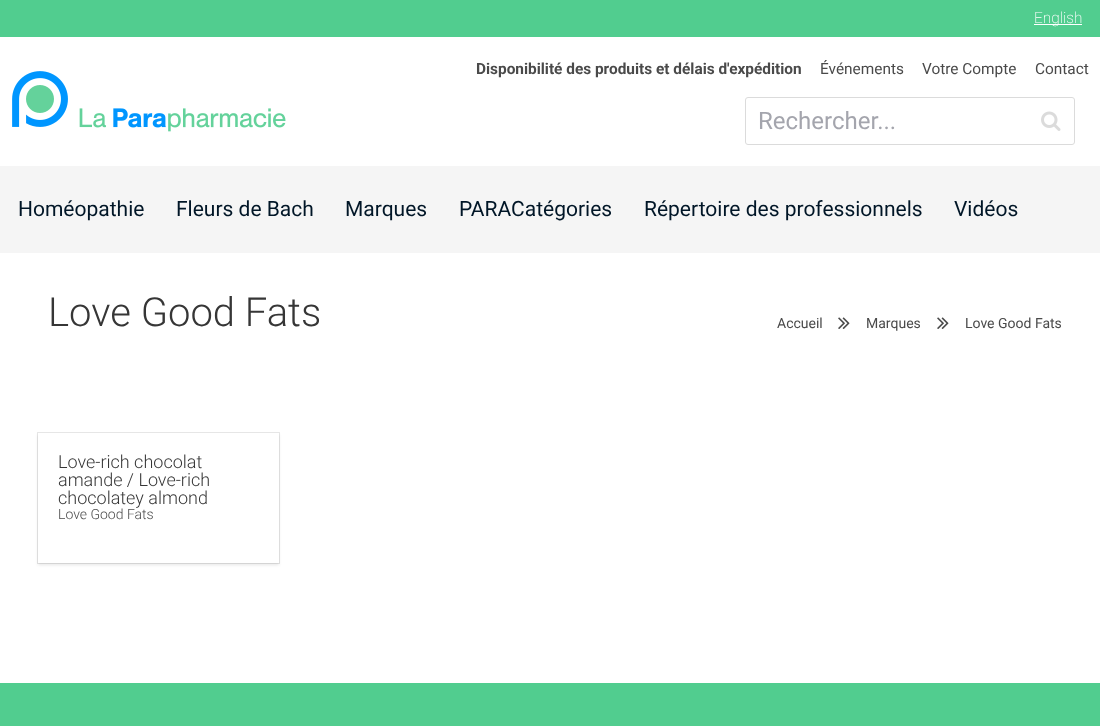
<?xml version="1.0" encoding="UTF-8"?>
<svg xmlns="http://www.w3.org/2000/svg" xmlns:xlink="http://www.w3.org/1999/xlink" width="1100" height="726">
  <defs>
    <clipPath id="clip1"><path d="M 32 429 h 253 v 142 h -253 z m 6 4 h 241 v 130 h -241 z" clip-rule="evenodd" /></clipPath>
  </defs>
  <rect width="100%" height="100%" fill="#ffffff" />
  <rect width="1100" height="37" fill="#51cd8f" />
  <rect x="1034" y="24" width="48" height="1" fill="#ffffff" />
  <image x="12" y="71" width="274" height="61" xlink:href="image1.png" />
  <rect x="745.5" y="97.5" width="329" height="47" rx="2.5" fill="none" stroke="#dbdbdb" />
  <image x="1041" y="111" width="20" height="20" xlink:href="image2.png" />
  <rect y="166" width="1100" height="87" fill="#f5f5f5" />
  <image x="838" y="317" width="12" height="12" xlink:href="image3.png" />
  <image x="937" y="317" width="12" height="12" xlink:href="image3.png" />
  <rect x="37.5" y="432.5" width="242" height="131" fill="none" stroke="#e7e7e7" />
  <g clip-path="url(#clip1)">
    <rect x="38" y="435" width="241" height="130" fill="#0a0a0a" fill-opacity="0.1" filter="blur(1.5px)" />
  </g>
  <rect y="683" width="1100" height="43" fill="#51cd8f" />
  <text x="1034" y="23" style="font-family: Roboto; font-size: 15.4px; font-weight: 200; fill: #ffffff">English</text>
  <text x="476" y="74" style="font-family: Roboto; font-size: 15.4px; font-weight: bold; fill: #4a4a4a">Disponibilité des produits et délais d'expédition</text>
  <text x="820" y="74" style="font-family: Roboto; font-size: 15.4px; fill: #4a4a4a">Événements</text>
  <text x="922" y="74" style="font-family: Roboto; font-size: 15.4px; fill: #4a4a4a">Votre Compte</text>
  <text x="1035" y="74" style="font-family: Roboto; font-size: 15.4px; fill: #4a4a4a">Contact</text>
  <text x="758" y="129" style="font-family: Roboto; font-size: 24px; fill: #a4a5ad">Rechercher...</text>
  <text x="18" y="216" style="font-family: Roboto; font-size: 21px; fill: #011627">Homéopathie</text>
  <text x="176" y="216" style="font-family: Roboto; font-size: 21px; fill: #011627">Fleurs de Bach</text>
  <text x="345" y="216" style="font-family: Roboto; font-size: 21px; fill: #011627">Marques</text>
  <text x="459" y="216" style="font-family: Roboto; font-size: 21px; fill: #011627">PARACatégories</text>
  <text x="644" y="216" style="font-family: Roboto; font-size: 21px; fill: #011627">Répertoire des professionnels</text>
  <text x="954" y="216" style="font-family: Roboto; font-size: 21px; fill: #011627">Vidéos</text>
  <text x="48" y="326" style="font-family: Roboto; font-size: 40px; font-weight: 300; fill: #363636">Love Good Fats</text>
  <text x="777" y="328" style="font-family: Roboto; font-size: 14px; fill: #4a4a4a">Accueil</text>
  <text x="866" y="328" style="font-family: Roboto; font-size: 14px; fill: #4a4a4a">Marques</text>
  <text x="965" y="328" style="font-family: Roboto; font-size: 14px; fill: #4a4a4a">Love Good Fats</text>
  <text x="58" y="468" style="font-family: Roboto; font-size: 18px; font-weight: 300; fill: #363636">Love-rich chocolat</text>
  <text x="58" y="486" style="font-family: Roboto; font-size: 18px; font-weight: 300; fill: #363636">amande / Love-rich</text>
  <text x="58" y="504" style="font-family: Roboto; font-size: 18px; font-weight: 300; fill: #363636">chocolatey almond</text>
  <text x="58" y="519" style="font-family: Roboto; font-size: 14px; font-weight: 300; fill: #4a4a4a">Love Good Fats</text>
</svg>
